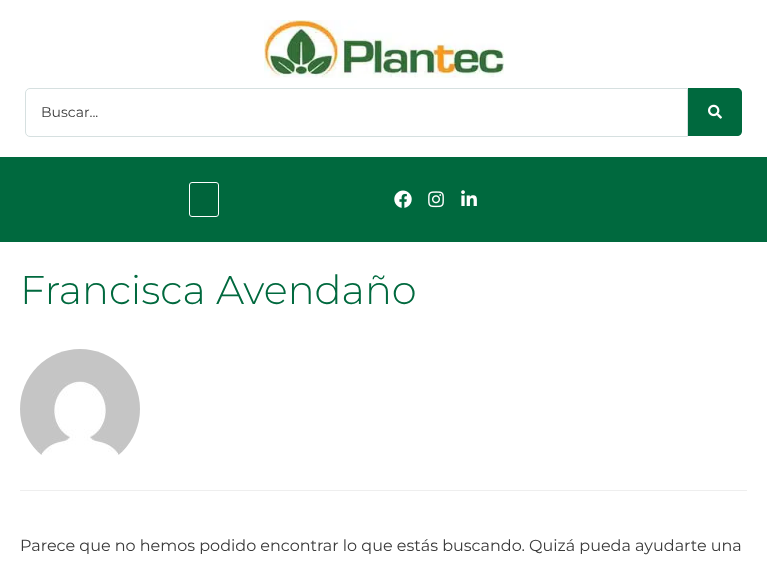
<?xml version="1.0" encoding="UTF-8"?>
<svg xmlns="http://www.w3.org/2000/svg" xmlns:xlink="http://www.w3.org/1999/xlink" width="767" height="566">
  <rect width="100%" height="100%" fill="#ffffff" />
  <image x="264" y="20" width="240" height="58" xlink:href="image1.png" />
  <path d="M 30 88.5 h 657.5 v 48 h -657.5 c -2.5 0 -4.5 -2 -4.5 -4.5 v -39 c 0 -2.5 2 -4.5 4.5 -4.5 z" fill="none" stroke="#d6e0e0" />
  <path d="M 688 88 h 49 c 3 0 5 2 5 5 v 38 c 0 3 -2 5 -5 5 h -49 z" fill="#00693e" />
  <image x="708" y="104" width="14" height="15" xlink:href="image2.png" />
  <rect y="157" width="767" height="85" fill="#00693e" />
  <rect x="189.5" y="182.5" width="29" height="34" rx="2.5" fill="#00643b" stroke="#ffffff" />
  <image x="394" y="190" width="18" height="18" xlink:href="image3.png" />
  <image x="428" y="191" width="16" height="17" xlink:href="image4.png" />
  <image x="461" y="190" width="16" height="16" xlink:href="image5.png" />
  <rect x="20" y="490" width="727" height="1" fill="#eeeeee" />
  <image x="20" y="349" width="120" height="106" xlink:href="image6.png" />
  <text x="41" y="117" style="font-family: Montserrat; font-size: 14px; fill: #3a3a3a">Buscar...</text>
  <text x="20" y="304" style="font-family: Montserrat; font-size: 40px; font-weight: 300; fill: #00693e">Francisca Avendaño</text>
  <text x="20" y="551" style="font-family: Montserrat; font-size: 16px; fill: #3a3a3a">Parece que no hemos podido encontrar lo que estás buscando. Quizá pueda ayudarte una</text>
</svg>
